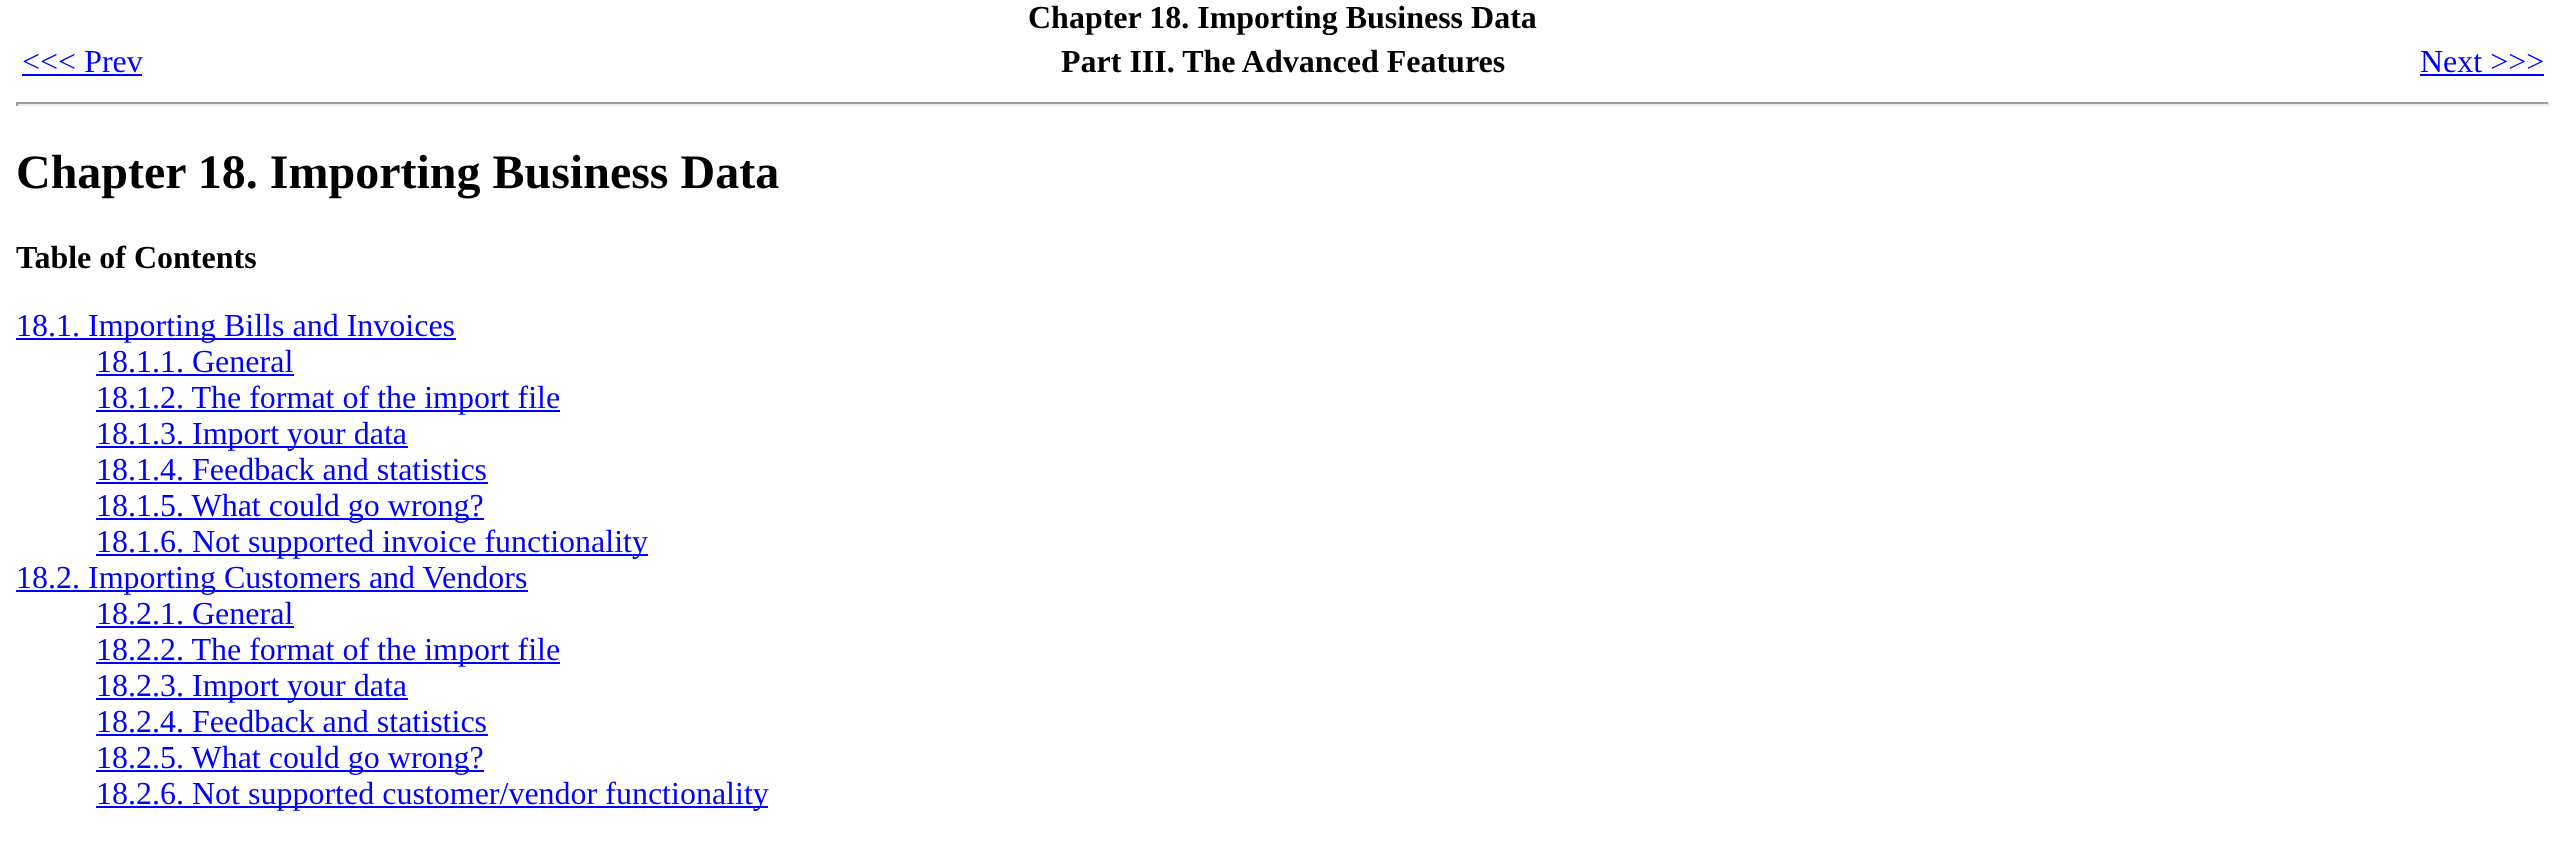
<?xml version="1.0" encoding="UTF-8"?>
<svg xmlns="http://www.w3.org/2000/svg" xmlns:xlink="http://www.w3.org/1999/xlink" width="2566" height="844">
  <rect width="100%" height="100%" fill="#ffffff" />
  <rect x="22" y="74" width="120" height="2" fill="#0000ff" />
  <rect x="2420" y="74" width="124" height="2" fill="#0000ff" />
  <rect x="16" y="102" width="2534" height="2" fill="#9f9f9f" />
  <rect x="2548" y="102" width="2" height="4" fill="#eeeeee" />
  <rect x="16" y="104" width="2534" height="2" fill="#eeeeee" />
  <rect x="16" y="102" width="2" height="4" fill="#9f9f9f" />
  <rect x="16" y="338" width="440" height="2" fill="#0000ff" />
  <rect x="96" y="374" width="198" height="2" fill="#0000ff" />
  <rect x="96" y="410" width="464" height="2" fill="#0000ff" />
  <rect x="96" y="446" width="312" height="2" fill="#0000ff" />
  <rect x="96" y="482" width="392" height="2" fill="#0000ff" />
  <rect x="96" y="518" width="388" height="2" fill="#0000ff" />
  <rect x="96" y="554" width="552" height="2" fill="#0000ff" />
  <rect x="16" y="590" width="512" height="2" fill="#0000ff" />
  <rect x="96" y="626" width="198" height="2" fill="#0000ff" />
  <rect x="96" y="662" width="464" height="2" fill="#0000ff" />
  <rect x="96" y="698" width="312" height="2" fill="#0000ff" />
  <rect x="96" y="734" width="392" height="2" fill="#0000ff" />
  <rect x="96" y="770" width="388" height="2" fill="#0000ff" />
  <rect x="96" y="806" width="672" height="2" fill="#0000ff" />
  <text x="1028" y="28" style="font-family: Liberation Serif; font-size: 32px; font-weight: bold; fill: #000000">Chapter 18. Importing Business Data</text>
  <text x="22" y="72" style="font-family: Liberation Serif; font-size: 32px; fill: #0000ff">&lt;&lt;&lt; Prev</text>
  <text x="1061" y="72" style="font-family: Liberation Serif; font-size: 32px; font-weight: bold; fill: #000000">Part III. The Advanced Features</text>
  <text x="2420" y="72" style="font-family: Liberation Serif; font-size: 32px; fill: #0000ff">Next &gt;&gt;&gt;</text>
  <text x="16" y="188" style="font-family: Liberation Serif; font-size: 48px; font-weight: bold; fill: #000000">Chapter 18. Importing Business Data</text>
  <text x="16" y="268" style="font-family: Liberation Serif; font-size: 32px; font-weight: bold; fill: #000000">Table of Contents</text>
  <text x="16" y="336" style="font-family: Liberation Serif; font-size: 32px; fill: #0000ff">18.1. Importing Bills and Invoices</text>
  <text x="96" y="372" style="font-family: Liberation Serif; font-size: 32px; fill: #0000ff">18.1.1. General</text>
  <text x="96" y="408" style="font-family: Liberation Serif; font-size: 32px; fill: #0000ff">18.1.2. The format of the import file</text>
  <text x="96" y="444" style="font-family: Liberation Serif; font-size: 32px; fill: #0000ff">18.1.3. Import your data</text>
  <text x="96" y="480" style="font-family: Liberation Serif; font-size: 32px; fill: #0000ff">18.1.4. Feedback and statistics</text>
  <text x="96" y="516" style="font-family: Liberation Serif; font-size: 32px; fill: #0000ff">18.1.5. What could go wrong?</text>
  <text x="96" y="552" style="font-family: Liberation Serif; font-size: 32px; fill: #0000ff">18.1.6. Not supported invoice functionality</text>
  <text x="16" y="588" style="font-family: Liberation Serif; font-size: 32px; fill: #0000ff">18.2. Importing Customers and Vendors</text>
  <text x="96" y="624" style="font-family: Liberation Serif; font-size: 32px; fill: #0000ff">18.2.1. General</text>
  <text x="96" y="660" style="font-family: Liberation Serif; font-size: 32px; fill: #0000ff">18.2.2. The format of the import file</text>
  <text x="96" y="696" style="font-family: Liberation Serif; font-size: 32px; fill: #0000ff">18.2.3. Import your data</text>
  <text x="96" y="732" style="font-family: Liberation Serif; font-size: 32px; fill: #0000ff">18.2.4. Feedback and statistics</text>
  <text x="96" y="768" style="font-family: Liberation Serif; font-size: 32px; fill: #0000ff">18.2.5. What could go wrong?</text>
  <text x="96" y="804" style="font-family: Liberation Serif; font-size: 32px; fill: #0000ff">18.2.6. Not supported customer/vendor functionality</text>
</svg>
